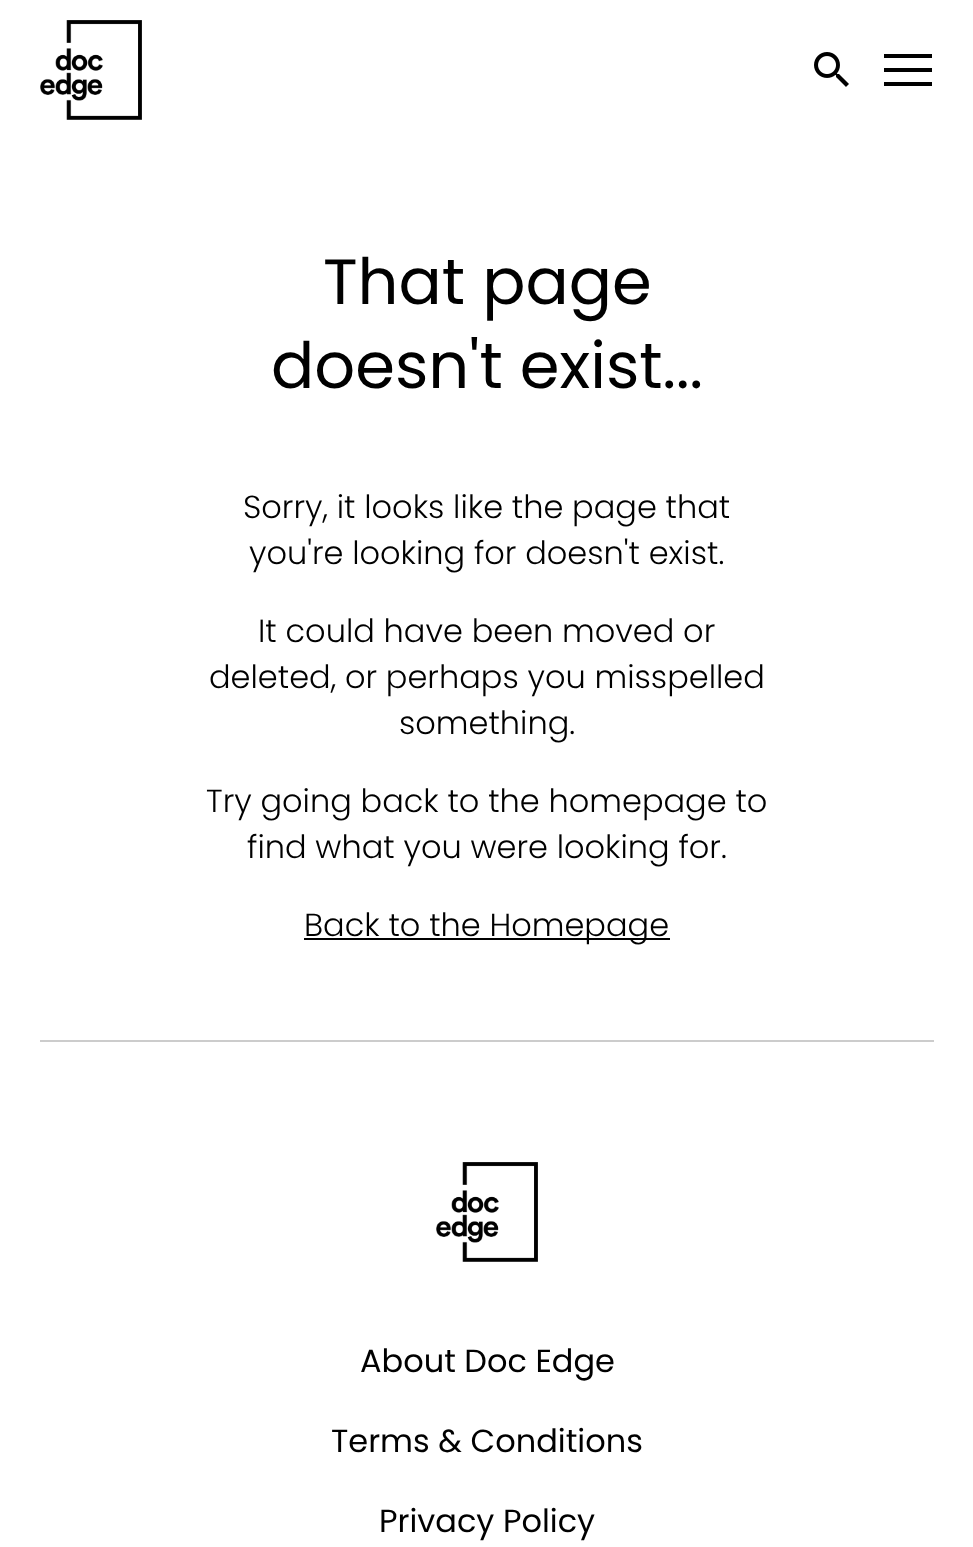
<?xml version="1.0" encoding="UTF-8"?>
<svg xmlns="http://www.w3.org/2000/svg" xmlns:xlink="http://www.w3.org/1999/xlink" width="973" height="1547">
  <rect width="100%" height="100%" fill="#ffffff" />
  <image x="40" y="20" width="102" height="100" xlink:href="image1.png" />
  <image x="814" y="52" width="35" height="35" xlink:href="image2.png" />
  <rect x="884" y="54" width="48" height="4" fill="#000000" />
  <rect x="884" y="68" width="48" height="4" fill="#000000" />
  <rect x="884" y="82" width="48" height="4" fill="#000000" />
  <rect x="304" y="938" width="366" height="2" fill="#000000" />
  <rect x="40" y="1040" width="894" height="2" fill="#cccccc" />
  <image x="436" y="1162" width="102" height="100" xlink:href="image3.png" />
  <text x="323" y="304" style="font-family: Poppins; font-size: 64px; fill: #000000">That page</text>
  <text x="271" y="388" style="font-family: Poppins; font-size: 64px; fill: #000000">doesn't exist...</text>
  <text x="243" y="518" style="font-family: Poppins; font-size: 32px; font-weight: 300; fill: #000000">Sorry, it looks like the page that</text>
  <text x="249" y="564" style="font-family: Poppins; font-size: 32px; font-weight: 300; fill: #000000">you're looking for doesn't exist.</text>
  <text x="258" y="642" style="font-family: Poppins; font-size: 32px; font-weight: 300; fill: #000000">It could have been moved or</text>
  <text x="209" y="688" style="font-family: Poppins; font-size: 32px; font-weight: 300; fill: #000000">deleted, or perhaps you misspelled</text>
  <text x="399" y="734" style="font-family: Poppins; font-size: 32px; font-weight: 300; fill: #000000">something.</text>
  <text x="206" y="812" style="font-family: Poppins; font-size: 32px; font-weight: 300; fill: #000000">Try going back to the homepage to</text>
  <text x="247" y="858" style="font-family: Poppins; font-size: 32px; font-weight: 300; fill: #000000">find what you were looking for.</text>
  <text x="304" y="936" style="font-family: Poppins; font-size: 32px; font-weight: 300; fill: #000000">Back to the Homepage</text>
  <text x="360" y="1372" style="font-family: Poppins; font-size: 32px; fill: #000000">About Doc Edge</text>
  <text x="331" y="1452" style="font-family: Poppins; font-size: 32px; fill: #000000">Terms &amp; Conditions</text>
  <text x="379" y="1532" style="font-family: Poppins; font-size: 32px; fill: #000000">Privacy Policy</text>
</svg>
